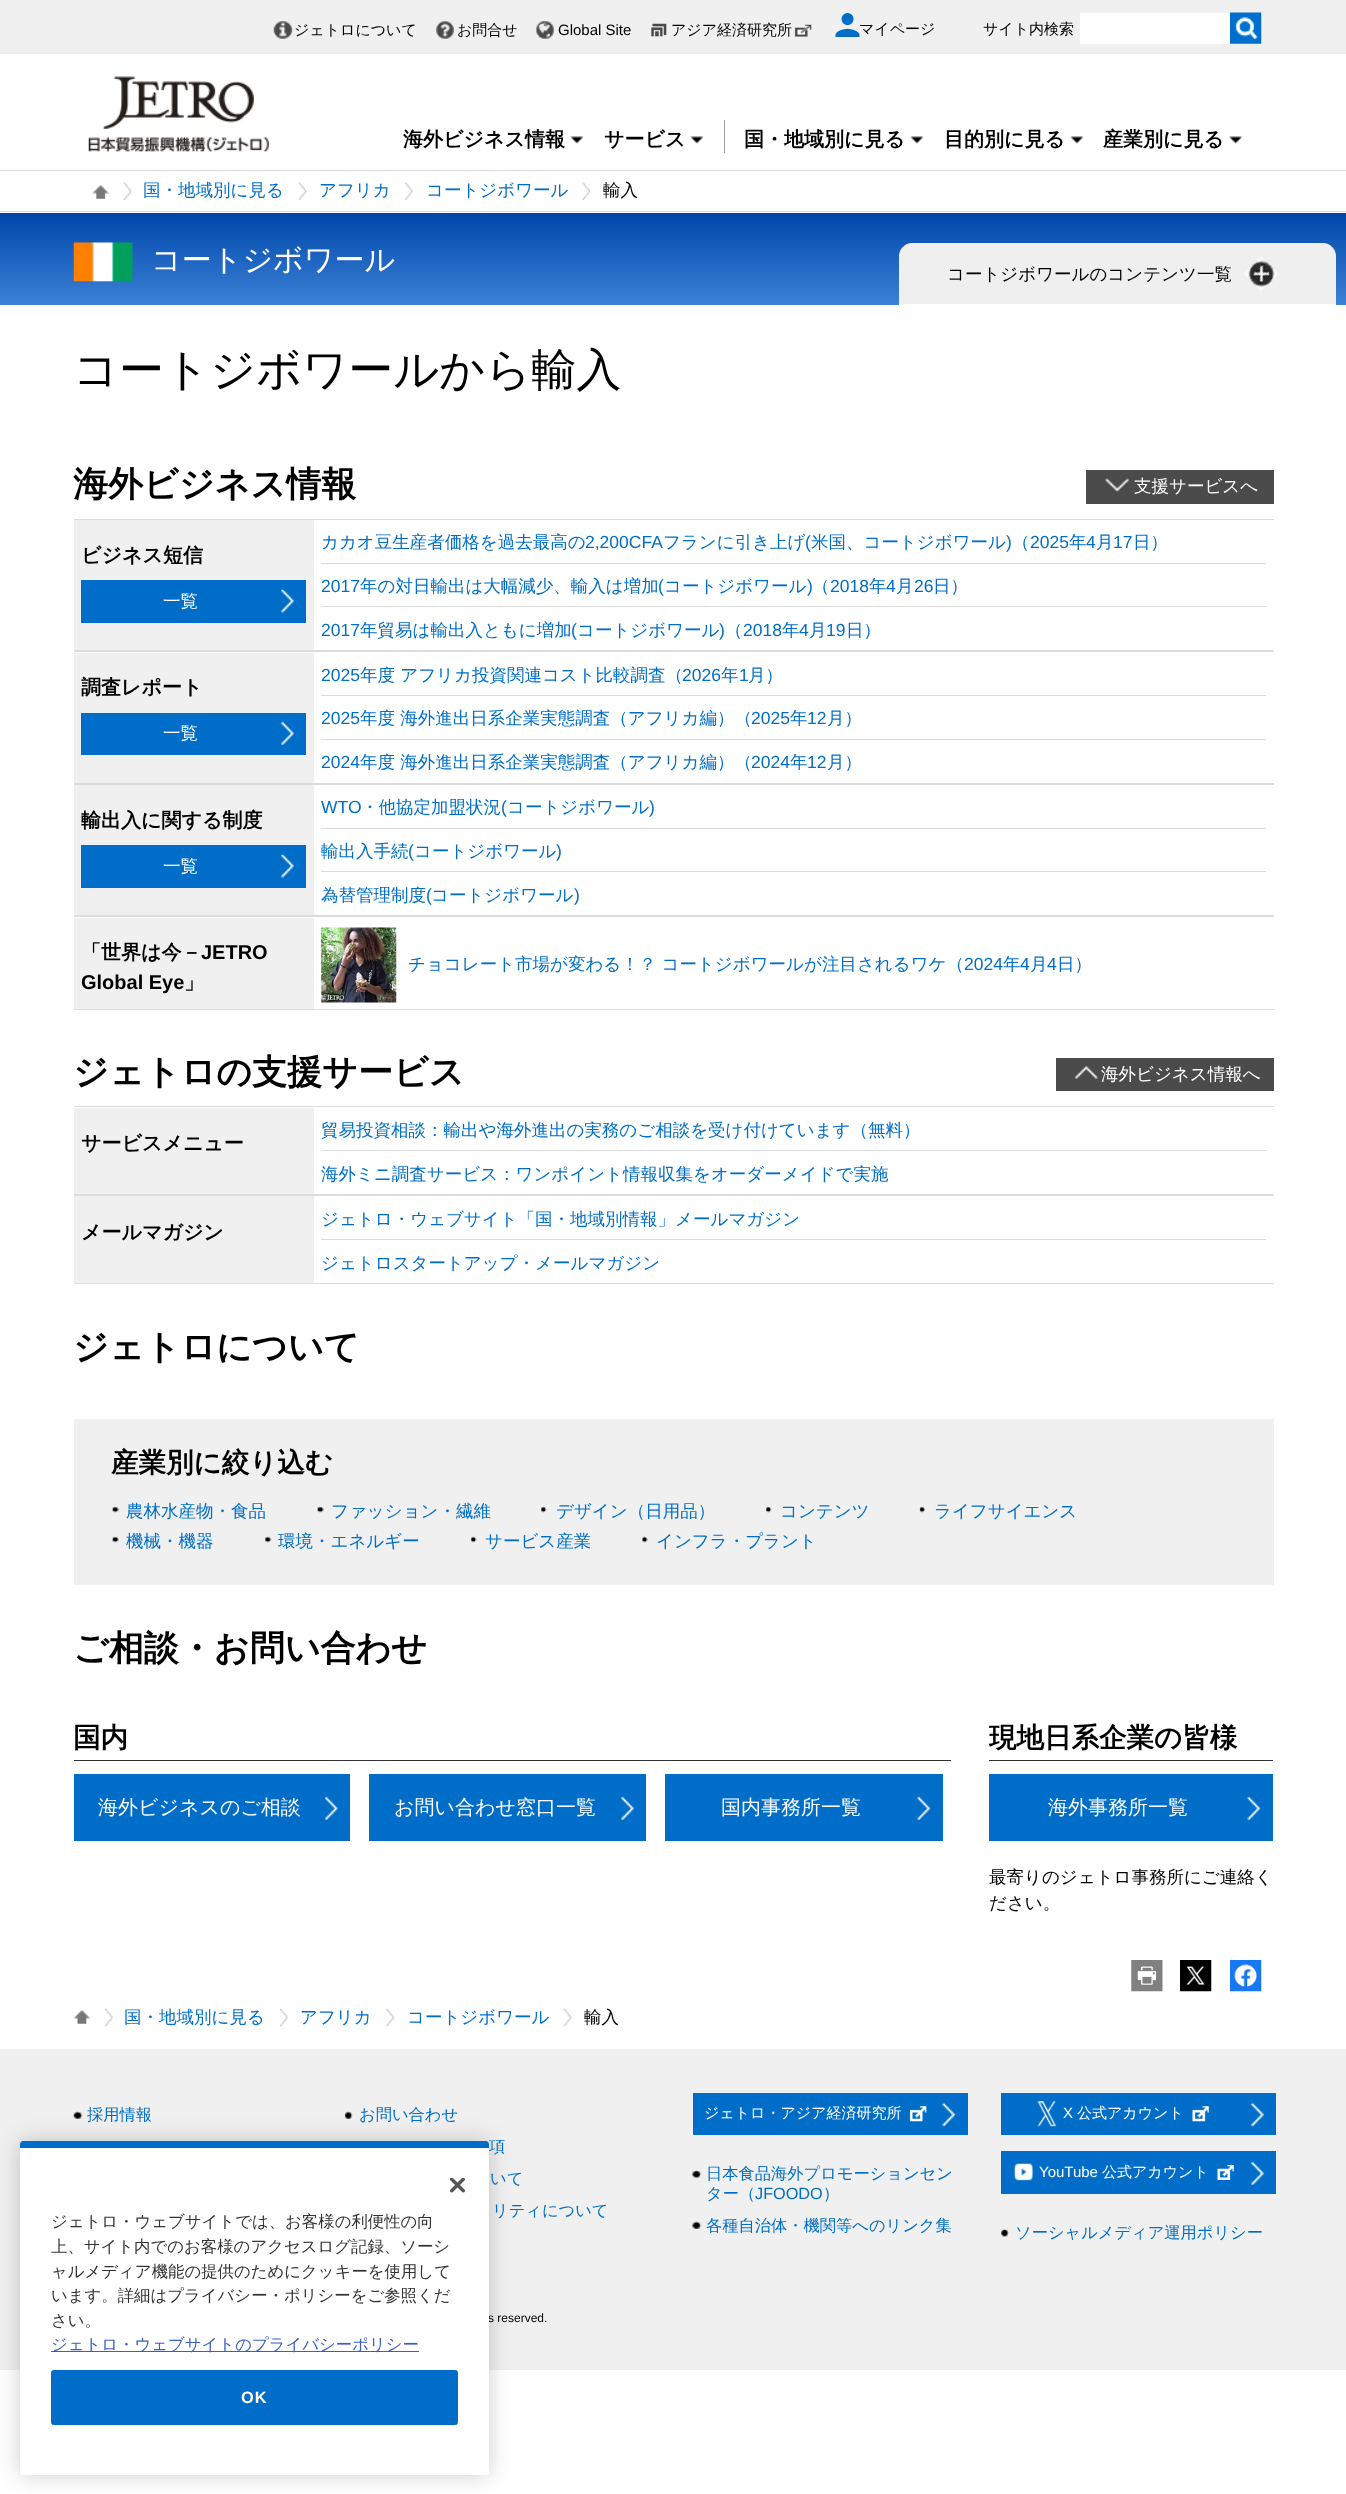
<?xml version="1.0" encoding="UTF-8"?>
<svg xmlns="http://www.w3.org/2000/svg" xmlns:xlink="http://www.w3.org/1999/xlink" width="1346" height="2494">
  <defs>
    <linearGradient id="g1" gradientUnits="userSpaceOnUse" x1="673" y1="212" x2="673" y2="305"><stop offset="0" stop-color="#0046aa" /><stop offset="1" stop-color="#3b81d6" /></linearGradient>
  </defs>
  <rect width="100%" height="100%" fill="#ffffff" />
  <rect width="1346" height="54" fill="#f0f0f0" />
  <image x="273" y="21" width="20" height="18" xlink:href="image1.png" />
  <image x="436" y="21" width="18" height="18" xlink:href="image2.png" />
  <image x="536" y="21" width="18" height="18" xlink:href="image3.png" />
  <image x="651" y="23" width="16" height="14" xlink:href="image4.png" />
  <image x="794" y="24" width="18" height="13" xlink:href="image5.png" />
  <image x="835" y="13" width="25" height="24" xlink:href="image6.png" />
  <rect x="1080" y="13" width="150" height="31" fill="#ffffff" />
  <image x="1230" y="12" width="32" height="32" xlink:href="image7.png" />
  <image x="88" y="76" width="181" height="76" xlink:href="image8.png" />
  <image x="570" y="136" width="14" height="8" xlink:href="image9.png" />
  <rect x="724" y="120" width="1" height="33" fill="#9f9f9f" />
  <image x="690" y="136" width="14" height="8" xlink:href="image9.png" />
  <image x="910" y="136" width="14" height="8" xlink:href="image9.png" />
  <image x="1070" y="136" width="14" height="8" xlink:href="image9.png" />
  <image x="1229" y="136" width="14" height="8" xlink:href="image10.png" />
  <rect y="170" width="1346" height="1" fill="#dcdcdc" />
  <rect y="211" width="1346" height="1" fill="#dcdcdc" />
  <image x="123" y="182" width="9" height="18" xlink:href="image11.png" />
  <image x="92" y="185" width="17" height="14" xlink:href="image12.png" />
  <image x="298" y="182" width="9" height="18" xlink:href="image13.png" />
  <image x="405" y="182" width="8" height="18" xlink:href="image14.png" />
  <image x="582" y="182" width="8" height="18" xlink:href="image15.png" />
  <rect y="213" width="1346" height="92" fill="url(#g1)" />
  <image x="73" y="242" width="60" height="40" xlink:href="image16.png" />
  <path d="M 912 243 h 411 c 7 0 13 6 13 13 v 49 h -437 v -49 c 0 -7 6 -13 13 -13 z" fill="#f0eff0" />
  <rect x="899" y="304" width="437" height="1" fill="#ffffff" />
  <image x="1244" y="256" width="35" height="35" xlink:href="image17.png" />
  <rect x="1086" y="470" width="188" height="34" fill="#4b4b4b" />
  <image x="1105" y="478" width="24" height="14" xlink:href="image18.png" />
  <rect x="74" y="519" width="1200" height="1" fill="#dcdcdc" />
  <rect x="74" y="650" width="1200" height="2" fill="#dcdcdc" />
  <rect x="74" y="520" width="240" height="130" fill="#f0f0f0" />
  <rect x="81" y="580" width="225" height="43" fill="#006ec8" />
  <image x="281" y="588" width="13" height="25" xlink:href="image19.png" />
  <rect x="321" y="563" width="945" height="1" fill="#dcdcdc" />
  <rect x="321" y="606" width="945" height="1" fill="#dcdcdc" />
  <rect x="74" y="783" width="1200" height="2" fill="#dcdcdc" />
  <rect x="74" y="653" width="240" height="130" fill="#f0f0f0" />
  <rect x="81" y="713" width="225" height="42" fill="#006ec8" />
  <image x="281" y="721" width="13" height="24" xlink:href="image20.png" />
  <rect x="321" y="695" width="945" height="1" fill="#dcdcdc" />
  <rect x="321" y="739" width="945" height="1" fill="#dcdcdc" />
  <rect x="74" y="915" width="1200" height="2" fill="#dcdcdc" />
  <rect x="74" y="785" width="240" height="130" fill="#f0f0f0" />
  <rect x="81" y="845" width="225" height="43" fill="#006ec8" />
  <image x="281" y="853" width="13" height="25" xlink:href="image19.png" />
  <rect x="321" y="828" width="945" height="1" fill="#dcdcdc" />
  <rect x="321" y="871" width="945" height="1" fill="#dcdcdc" />
  <rect x="74" y="1009" width="1200" height="1" fill="#dcdcdc" />
  <rect x="74" y="918" width="240" height="91" fill="#f0f0f0" />
  <image x="321" y="927" width="76" height="76" xlink:href="image21.png" />
  <rect x="1056" y="1058" width="218" height="33" fill="#4b4b4b" />
  <image x="1074" y="1066" width="24" height="13" xlink:href="image22.png" />
  <rect x="74" y="1106" width="1200" height="1" fill="#dcdcdc" />
  <rect x="74" y="1194" width="1200" height="2" fill="#dcdcdc" />
  <rect x="74" y="1108" width="240" height="86" fill="#f0f0f0" />
  <rect x="321" y="1150" width="945" height="1" fill="#dcdcdc" />
  <rect x="74" y="1283" width="1200" height="1" fill="#dcdcdc" />
  <rect x="74" y="1196" width="240" height="87" fill="#f0f0f0" />
  <rect x="321" y="1239" width="945" height="1" fill="#dcdcdc" />
  <rect x="74" y="1419" width="1200" height="166" fill="#f0f0f0" />
  <image x="112" y="1506" width="7" height="7" xlink:href="image23.png" />
  <image x="317" y="1506" width="7" height="7" xlink:href="image24.png" />
  <image x="541" y="1506" width="6" height="7" xlink:href="image25.png" />
  <image x="766" y="1506" width="6" height="7" xlink:href="image25.png" />
  <image x="919" y="1506" width="6" height="7" xlink:href="image26.png" />
  <image x="112" y="1536" width="7" height="7" xlink:href="image23.png" />
  <image x="265" y="1536" width="7" height="7" xlink:href="image27.png" />
  <image x="471" y="1536" width="6" height="7" xlink:href="image25.png" />
  <image x="642" y="1536" width="6" height="7" xlink:href="image28.png" />
  <rect x="74" y="1760" width="877" height="1" fill="#333333" />
  <rect x="74" y="1774" width="276" height="67" fill="#006ec8" />
  <image x="325" y="1796" width="13" height="24" xlink:href="image29.png" />
  <rect x="369" y="1774" width="277" height="67" fill="#006ec8" />
  <image x="621" y="1796" width="13" height="24" xlink:href="image20.png" />
  <rect x="665" y="1774" width="278" height="67" fill="#006ec8" />
  <image x="917" y="1796" width="14" height="24" xlink:href="image30.png" />
  <rect x="989" y="1760" width="284" height="1" fill="#333333" />
  <rect x="989" y="1774" width="284" height="67" fill="#006ec8" />
  <image x="1247" y="1796" width="14" height="24" xlink:href="image30.png" />
  <image x="1131" y="1960" width="32" height="32" xlink:href="image31.png" />
  <image x="1180" y="1960" width="32" height="32" xlink:href="image32.png" />
  <image x="1230" y="1960" width="32" height="32" xlink:href="image33.png" />
  <image x="105" y="2008" width="8" height="19" xlink:href="image34.png" />
  <image x="73" y="2010" width="17" height="14" xlink:href="image35.png" />
  <image x="280" y="2008" width="8" height="19" xlink:href="image36.png" />
  <image x="386" y="2008" width="8" height="19" xlink:href="image37.png" />
  <image x="563" y="2008" width="9" height="19" xlink:href="image38.png" />
  <rect y="2049" width="1346" height="321" fill="#f0f0f0" />
  <image x="73" y="2111" width="10" height="8" xlink:href="image39.png" />
  <image x="345" y="2111" width="8" height="8" xlink:href="image40.png" />
  <rect x="693" y="2093" width="275" height="42" fill="#006ec8" />
  <image x="942" y="2102" width="14" height="25" xlink:href="image41.png" />
  <image x="909" y="2106" width="18" height="16" xlink:href="image42.png" />
  <image x="692" y="2170" width="10" height="8" xlink:href="image43.png" />
  <image x="692" y="2221" width="10" height="8" xlink:href="image44.png" />
  <rect x="1001" y="2093" width="275" height="42" fill="#006ec8" />
  <image x="1251" y="2102" width="13" height="25" xlink:href="image45.png" />
  <image x="1037" y="2101" width="20" height="26" xlink:href="image46.png" />
  <image x="1192" y="2106" width="17" height="16" xlink:href="image47.png" />
  <rect x="1001" y="2151" width="275" height="43" fill="#006ec8" />
  <image x="1251" y="2161" width="13" height="24" xlink:href="image20.png" />
  <image x="1014" y="2163" width="19" height="18" xlink:href="image48.png" />
  <image x="1217" y="2165" width="17" height="15" xlink:href="image49.png" />
  <image x="1001" y="2228" width="8" height="9" xlink:href="image50.png" />
  <rect x="20" y="2141" width="469" height="334" rx="3" fill="#000000" fill-opacity="0.2" filter="blur(11px)" />
  <text x="294" y="35" style="font-family: WenQuanYi Zen Hei; font-size: 15px; font-weight: 500; fill: #000000">ジェトロについて</text>
  <text x="457" y="35" style="font-family: WenQuanYi Zen Hei; font-size: 15px; font-weight: 500; fill: #000000">お問合せ</text>
  <text x="558" y="35" style="font-family: Liberation Sans; font-size: 15px; fill: #000000">Global Site</text>
  <text x="671" y="35" style="font-family: WenQuanYi Zen Hei; font-size: 15px; font-weight: 500; fill: #000000">アジア経済研究所</text>
  <text x="859" y="34" style="font-family: WenQuanYi Zen Hei; font-size: 15px; font-weight: 500; fill: #000000">マイページ</text>
  <text x="983" y="34" style="font-family: WenQuanYi Zen Hei; font-size: 15px; font-weight: 500; fill: #000000">サイト内検索</text>
  <text x="403" y="146" style="font-family: WenQuanYi Zen Hei; font-size: 20px; font-weight: bold; fill: #000000">海外ビジネス情報</text>
  <text x="604" y="146" style="font-family: WenQuanYi Zen Hei; font-size: 20px; font-weight: bold; fill: #000000">サービス</text>
  <text x="744" y="146" style="font-family: WenQuanYi Zen Hei; font-size: 20px; font-weight: bold; fill: #000000">国・地域別に見る</text>
  <text x="944" y="146" style="font-family: WenQuanYi Zen Hei; font-size: 20px; font-weight: bold; fill: #000000">目的別に見る</text>
  <text x="1103" y="146" style="font-family: WenQuanYi Zen Hei; font-size: 20px; font-weight: bold; fill: #000000">産業別に見る</text>
  <text x="143" y="196" style="font-family: WenQuanYi Zen Hei; font-size: 17.5px; font-weight: 500; fill: #006ec8">国・地域別に見る</text>
  <text x="319" y="196" style="font-family: WenQuanYi Zen Hei; font-size: 17.5px; font-weight: 500; fill: #006ec8">アフリカ</text>
  <text x="426" y="196" style="font-family: WenQuanYi Zen Hei; font-size: 17.5px; font-weight: 500; fill: #006ec8">コートジボワール</text>
  <text x="603" y="196" style="font-family: WenQuanYi Zen Hei; font-size: 17.5px; font-weight: 500; fill: #000000">輸入</text>
  <text x="151" y="270" style="font-family: WenQuanYi Zen Hei; font-size: 30px; font-weight: 500; fill: #ffffff">コートジボワール</text>
  <text x="947" y="280" style="font-family: WenQuanYi Zen Hei; font-size: 17.5px; font-weight: 500; fill: #000000">コートジボワールのコンテンツ一覧</text>
  <text x="73" y="385" style="font-family: WenQuanYi Zen Hei; font-size: 45px; font-weight: 500; fill: #000000">コートジボワールから輸入</text>
  <text x="73" y="496" style="font-family: WenQuanYi Zen Hei; font-size: 35px; font-weight: bold; fill: #000000">海外ビジネス情報</text>
  <text x="1134" y="492" style="font-family: WenQuanYi Zen Hei; font-size: 17.5px; font-weight: 500; fill: #ffffff">支援サービスへ</text>
  <text x="81" y="562" style="font-family: WenQuanYi Zen Hei; font-size: 20px; font-weight: bold; fill: #000000">ビジネス短信</text>
  <text x="163" y="607" style="font-family: WenQuanYi Zen Hei; font-size: 17.5px; font-weight: 500; fill: #ffffff">一覧</text>
  <text x="321" y="548" style="font-family: WenQuanYi Zen Hei; font-size: 17.5px; font-weight: 500; fill: #006ec8">カカオ豆生産者価格を過去最高の</text>
  <text x="585" y="548" style="font-family: Liberation Sans; font-size: 17.5px; fill: #006ec8">2,200CFA</text>
  <text x="663" y="548" style="font-family: WenQuanYi Zen Hei; font-size: 17.5px; font-weight: 500; fill: #006ec8">フランに引き上げ</text>
  <text x="805" y="548" style="font-family: Liberation Sans; font-size: 17.5px; fill: #006ec8">(</text>
  <text x="811" y="548" style="font-family: WenQuanYi Zen Hei; font-size: 17.5px; font-weight: 500; fill: #006ec8">米国、コートジボワール</text>
  <text x="1006" y="548" style="font-family: Liberation Sans; font-size: 17.5px; fill: #006ec8">)</text>
  <text x="1012" y="548" style="font-family: WenQuanYi Zen Hei; font-size: 17.5px; font-weight: 500; fill: #006ec8">（</text>
  <text x="1030" y="548" style="font-family: Liberation Sans; font-size: 17.5px; fill: #006ec8">2025</text>
  <text x="1069" y="548" style="font-family: WenQuanYi Zen Hei; font-size: 17.5px; font-weight: 500; fill: #006ec8">年</text>
  <text x="1086" y="548" style="font-family: Liberation Sans; font-size: 17.5px; fill: #006ec8">4</text>
  <text x="1096" y="548" style="font-family: WenQuanYi Zen Hei; font-size: 17.5px; font-weight: 500; fill: #006ec8">月</text>
  <text x="1113" y="548" style="font-family: Liberation Sans; font-size: 17.5px; fill: #006ec8">17</text>
  <text x="1133" y="548" style="font-family: WenQuanYi Zen Hei; font-size: 17.5px; font-weight: 500; fill: #006ec8">日）</text>
  <text x="321" y="592" style="font-family: Liberation Sans; font-size: 17.5px; fill: #006ec8">2017</text>
  <text x="360" y="592" style="font-family: WenQuanYi Zen Hei; font-size: 17.5px; font-weight: 500; fill: #006ec8">年の対日輸出は大幅減少、輸入は増加</text>
  <text x="658" y="592" style="font-family: Liberation Sans; font-size: 17.5px; fill: #006ec8">(</text>
  <text x="664" y="592" style="font-family: WenQuanYi Zen Hei; font-size: 17.5px; font-weight: 500; fill: #006ec8">コートジボワール</text>
  <text x="807" y="592" style="font-family: Liberation Sans; font-size: 17.5px; fill: #006ec8">)</text>
  <text x="812" y="592" style="font-family: WenQuanYi Zen Hei; font-size: 17.5px; font-weight: 500; fill: #006ec8">（</text>
  <text x="830" y="592" style="font-family: Liberation Sans; font-size: 17.5px; fill: #006ec8">2018</text>
  <text x="869" y="592" style="font-family: WenQuanYi Zen Hei; font-size: 17.5px; font-weight: 500; fill: #006ec8">年</text>
  <text x="886" y="592" style="font-family: Liberation Sans; font-size: 17.5px; fill: #006ec8">4</text>
  <text x="896" y="592" style="font-family: WenQuanYi Zen Hei; font-size: 17.5px; font-weight: 500; fill: #006ec8">月</text>
  <text x="914" y="592" style="font-family: Liberation Sans; font-size: 17.5px; fill: #006ec8">26</text>
  <text x="933" y="592" style="font-family: WenQuanYi Zen Hei; font-size: 17.5px; font-weight: 500; fill: #006ec8">日）</text>
  <text x="321" y="636" style="font-family: Liberation Sans; font-size: 17.5px; fill: #006ec8">2017</text>
  <text x="360" y="636" style="font-family: WenQuanYi Zen Hei; font-size: 17.5px; font-weight: 500; fill: #006ec8">年貿易は輸出入ともに増加</text>
  <text x="571" y="636" style="font-family: Liberation Sans; font-size: 17.5px; fill: #006ec8">(</text>
  <text x="577" y="636" style="font-family: WenQuanYi Zen Hei; font-size: 17.5px; font-weight: 500; fill: #006ec8">コートジボワール</text>
  <text x="719" y="636" style="font-family: Liberation Sans; font-size: 17.5px; fill: #006ec8">)</text>
  <text x="725" y="636" style="font-family: WenQuanYi Zen Hei; font-size: 17.5px; font-weight: 500; fill: #006ec8">（</text>
  <text x="743" y="636" style="font-family: Liberation Sans; font-size: 17.5px; fill: #006ec8">2018</text>
  <text x="782" y="636" style="font-family: WenQuanYi Zen Hei; font-size: 17.5px; font-weight: 500; fill: #006ec8">年</text>
  <text x="799" y="636" style="font-family: Liberation Sans; font-size: 17.5px; fill: #006ec8">4</text>
  <text x="809" y="636" style="font-family: WenQuanYi Zen Hei; font-size: 17.5px; font-weight: 500; fill: #006ec8">月</text>
  <text x="826" y="636" style="font-family: Liberation Sans; font-size: 17.5px; fill: #006ec8">19</text>
  <text x="846" y="636" style="font-family: WenQuanYi Zen Hei; font-size: 17.5px; font-weight: 500; fill: #006ec8">日）</text>
  <text x="81" y="694" style="font-family: WenQuanYi Zen Hei; font-size: 20px; font-weight: bold; fill: #000000">調査レポート</text>
  <text x="163" y="739" style="font-family: WenQuanYi Zen Hei; font-size: 17.5px; font-weight: 500; fill: #ffffff">一覧</text>
  <text x="321" y="681" style="font-family: Liberation Sans; font-size: 17.5px; fill: #006ec8">2025</text>
  <text x="360" y="681" style="font-family: WenQuanYi Zen Hei; font-size: 17.5px; font-weight: 500; fill: #006ec8">年度 アフリカ投資関連コスト比較調査（</text>
  <text x="682" y="681" style="font-family: Liberation Sans; font-size: 17.5px; fill: #006ec8">2026</text>
  <text x="721" y="681" style="font-family: WenQuanYi Zen Hei; font-size: 17.5px; font-weight: 500; fill: #006ec8">年</text>
  <text x="739" y="681" style="font-family: Liberation Sans; font-size: 17.5px; fill: #006ec8">1</text>
  <text x="748" y="681" style="font-family: WenQuanYi Zen Hei; font-size: 17.5px; font-weight: 500; fill: #006ec8">月）</text>
  <text x="321" y="724" style="font-family: Liberation Sans; font-size: 17.5px; fill: #006ec8">2025</text>
  <text x="360" y="724" style="font-family: WenQuanYi Zen Hei; font-size: 17.5px; font-weight: 500; fill: #006ec8">年度 海外進出日系企業実態調査（アフリカ編）（</text>
  <text x="751" y="724" style="font-family: Liberation Sans; font-size: 17.5px; fill: #006ec8">2025</text>
  <text x="790" y="724" style="font-family: WenQuanYi Zen Hei; font-size: 17.5px; font-weight: 500; fill: #006ec8">年</text>
  <text x="807" y="724" style="font-family: Liberation Sans; font-size: 17.5px; fill: #006ec8">12</text>
  <text x="827" y="724" style="font-family: WenQuanYi Zen Hei; font-size: 17.5px; font-weight: 500; fill: #006ec8">月）</text>
  <text x="321" y="768" style="font-family: Liberation Sans; font-size: 17.5px; fill: #006ec8">2024</text>
  <text x="360" y="768" style="font-family: WenQuanYi Zen Hei; font-size: 17.5px; font-weight: 500; fill: #006ec8">年度 海外進出日系企業実態調査（アフリカ編）（</text>
  <text x="751" y="768" style="font-family: Liberation Sans; font-size: 17.5px; fill: #006ec8">2024</text>
  <text x="790" y="768" style="font-family: WenQuanYi Zen Hei; font-size: 17.5px; font-weight: 500; fill: #006ec8">年</text>
  <text x="807" y="768" style="font-family: Liberation Sans; font-size: 17.5px; fill: #006ec8">12</text>
  <text x="827" y="768" style="font-family: WenQuanYi Zen Hei; font-size: 17.5px; font-weight: 500; fill: #006ec8">月）</text>
  <text x="81" y="827" style="font-family: WenQuanYi Zen Hei; font-size: 20px; font-weight: bold; fill: #000000">輸出入に関する制度</text>
  <text x="163" y="872" style="font-family: WenQuanYi Zen Hei; font-size: 17.5px; font-weight: 500; fill: #ffffff">一覧</text>
  <text x="321" y="813" style="font-family: Liberation Sans; font-size: 17.5px; fill: #006ec8">WTO</text>
  <text x="361" y="813" style="font-family: WenQuanYi Zen Hei; font-size: 17.5px; font-weight: 500; fill: #006ec8">・他協定加盟状況</text>
  <text x="501" y="813" style="font-family: Liberation Sans; font-size: 17.5px; fill: #006ec8">(</text>
  <text x="507" y="813" style="font-family: WenQuanYi Zen Hei; font-size: 17.5px; font-weight: 500; fill: #006ec8">コートジボワール</text>
  <text x="649" y="813" style="font-family: Liberation Sans; font-size: 17.5px; fill: #006ec8">)</text>
  <text x="321" y="857" style="font-family: WenQuanYi Zen Hei; font-size: 17.5px; font-weight: 500; fill: #006ec8">輸出入手続</text>
  <text x="408" y="857" style="font-family: Liberation Sans; font-size: 17.5px; fill: #006ec8">(</text>
  <text x="414" y="857" style="font-family: WenQuanYi Zen Hei; font-size: 17.5px; font-weight: 500; fill: #006ec8">コートジボワール</text>
  <text x="556" y="857" style="font-family: Liberation Sans; font-size: 17.5px; fill: #006ec8">)</text>
  <text x="321" y="901" style="font-family: WenQuanYi Zen Hei; font-size: 17.5px; font-weight: 500; fill: #006ec8">為替管理制度</text>
  <text x="426" y="901" style="font-family: Liberation Sans; font-size: 17.5px; fill: #006ec8">(</text>
  <text x="431" y="901" style="font-family: WenQuanYi Zen Hei; font-size: 17.5px; font-weight: 500; fill: #006ec8">コートジボワール</text>
  <text x="574" y="901" style="font-family: Liberation Sans; font-size: 17.5px; fill: #006ec8">)</text>
  <text x="81" y="959" style="font-family: WenQuanYi Zen Hei; font-size: 20px; font-weight: bold; fill: #000000">「世界は今－</text>
  <text x="201" y="959" style="font-family: Liberation Sans; font-size: 20px; font-weight: bold; fill: #000000">JETRO</text>
  <text x="81" y="989" style="font-family: Liberation Sans; font-size: 20px; font-weight: bold; fill: #000000">Global Eye</text>
  <text x="184" y="989" style="font-family: WenQuanYi Zen Hei; font-size: 20px; font-weight: bold; fill: #000000">」</text>
  <text x="408" y="970" style="font-family: WenQuanYi Zen Hei; font-size: 17.5px; font-weight: 500; fill: #006ec8">チョコレート市場が変わる！？ コートジボワールが注目されるワケ（</text>
  <text x="964" y="970" style="font-family: Liberation Sans; font-size: 17.5px; fill: #006ec8">2024</text>
  <text x="1003" y="970" style="font-family: WenQuanYi Zen Hei; font-size: 17.5px; font-weight: 500; fill: #006ec8">年</text>
  <text x="1020" y="970" style="font-family: Liberation Sans; font-size: 17.5px; fill: #006ec8">4</text>
  <text x="1030" y="970" style="font-family: WenQuanYi Zen Hei; font-size: 17.5px; font-weight: 500; fill: #006ec8">月</text>
  <text x="1047" y="970" style="font-family: Liberation Sans; font-size: 17.5px; fill: #006ec8">4</text>
  <text x="1057" y="970" style="font-family: WenQuanYi Zen Hei; font-size: 17.5px; font-weight: 500; fill: #006ec8">日）</text>
  <text x="73" y="1084" style="font-family: WenQuanYi Zen Hei; font-size: 35px; font-weight: bold; fill: #000000">ジェトロの支援サービス</text>
  <text x="1101" y="1080" style="font-family: WenQuanYi Zen Hei; font-size: 17.5px; font-weight: 500; fill: #ffffff">海外ビジネス情報へ</text>
  <text x="81" y="1150" style="font-family: WenQuanYi Zen Hei; font-size: 20px; font-weight: bold; fill: #000000">サービスメニュー</text>
  <text x="321" y="1136" style="font-family: WenQuanYi Zen Hei; font-size: 17.5px; font-weight: 500; fill: #006ec8">貿易投資相談：輸出や海外進出の実務のご相談を受け付けています（無料）</text>
  <text x="321" y="1180" style="font-family: WenQuanYi Zen Hei; font-size: 17.5px; font-weight: 500; fill: #006ec8">海外ミニ調査サービス：ワンポイント情報収集をオーダーメイドで実施</text>
  <text x="81" y="1239" style="font-family: WenQuanYi Zen Hei; font-size: 20px; font-weight: bold; fill: #000000">メールマガジン</text>
  <text x="321" y="1225" style="font-family: WenQuanYi Zen Hei; font-size: 17.5px; font-weight: 500; fill: #006ec8">ジェトロ・ウェブサイト「国・地域別情報」メールマガジン</text>
  <text x="321" y="1269" style="font-family: WenQuanYi Zen Hei; font-size: 17.5px; font-weight: 500; fill: #006ec8">ジェトロスタートアップ・メールマガジン</text>
  <text x="73" y="1359" style="font-family: WenQuanYi Zen Hei; font-size: 35px; font-weight: bold; fill: #000000">ジェトロについて</text>
  <text x="111" y="1472" style="font-family: WenQuanYi Zen Hei; font-size: 27.5px; font-weight: bold; fill: #000000">産業別に絞り込む</text>
  <text x="126" y="1517" style="font-family: WenQuanYi Zen Hei; font-size: 17.5px; font-weight: 500; fill: #006ec8">農林水産物・食品</text>
  <text x="331" y="1517" style="font-family: WenQuanYi Zen Hei; font-size: 17.5px; font-weight: 500; fill: #006ec8">ファッション・繊維</text>
  <text x="556" y="1517" style="font-family: WenQuanYi Zen Hei; font-size: 17.5px; font-weight: 500; fill: #006ec8">デザイン（日用品）</text>
  <text x="780" y="1517" style="font-family: WenQuanYi Zen Hei; font-size: 17.5px; font-weight: 500; fill: #006ec8">コンテンツ</text>
  <text x="934" y="1517" style="font-family: WenQuanYi Zen Hei; font-size: 17.5px; font-weight: 500; fill: #006ec8">ライフサイエンス</text>
  <text x="126" y="1547" style="font-family: WenQuanYi Zen Hei; font-size: 17.5px; font-weight: 500; fill: #006ec8">機械・機器</text>
  <text x="278" y="1547" style="font-family: WenQuanYi Zen Hei; font-size: 17.5px; font-weight: 500; fill: #006ec8">環境・エネルギー</text>
  <text x="485" y="1547" style="font-family: WenQuanYi Zen Hei; font-size: 17.5px; font-weight: 500; fill: #006ec8">サービス産業</text>
  <text x="656" y="1547" style="font-family: WenQuanYi Zen Hei; font-size: 17.5px; font-weight: 500; fill: #006ec8">インフラ・プラント</text>
  <text x="73" y="1660" style="font-family: WenQuanYi Zen Hei; font-size: 35px; font-weight: bold; fill: #000000">ご相談・お問い合わせ</text>
  <text x="73" y="1747" style="font-family: WenQuanYi Zen Hei; font-size: 27.5px; font-weight: bold; fill: #000000">国内</text>
  <text x="98" y="1814" style="font-family: WenQuanYi Zen Hei; font-size: 20px; font-weight: 500; fill: #ffffff">海外ビジネスのご相談</text>
  <text x="394" y="1814" style="font-family: WenQuanYi Zen Hei; font-size: 20px; font-weight: 500; fill: #ffffff">お問い合わせ窓口一覧</text>
  <text x="721" y="1814" style="font-family: WenQuanYi Zen Hei; font-size: 20px; font-weight: 500; fill: #ffffff">国内事務所一覧</text>
  <text x="989" y="1747" style="font-family: WenQuanYi Zen Hei; font-size: 27.5px; font-weight: bold; fill: #000000">現地日系企業の皆様</text>
  <text x="1048" y="1814" style="font-family: WenQuanYi Zen Hei; font-size: 20px; font-weight: 500; fill: #ffffff">海外事務所一覧</text>
  <text x="989" y="1883" style="font-family: WenQuanYi Zen Hei; font-size: 17.5px; font-weight: 500; fill: #000000">最寄りのジェトロ事務所にご連絡く</text>
  <text x="989" y="1909" style="font-family: WenQuanYi Zen Hei; font-size: 17.5px; font-weight: 500; fill: #000000">ださい。</text>
  <text x="124" y="2023" style="font-family: WenQuanYi Zen Hei; font-size: 17.5px; font-weight: 500; fill: #006ec8">国・地域別に見る</text>
  <text x="300" y="2023" style="font-family: WenQuanYi Zen Hei; font-size: 17.5px; font-weight: 500; fill: #006ec8">アフリカ</text>
  <text x="407" y="2023" style="font-family: WenQuanYi Zen Hei; font-size: 17.5px; font-weight: 500; fill: #006ec8">コートジボワール</text>
  <text x="584" y="2023" style="font-family: WenQuanYi Zen Hei; font-size: 17.5px; font-weight: 500; fill: #000000">輸入</text>
  <text x="87" y="2120" style="font-family: WenQuanYi Zen Hei; font-size: 16.25px; font-weight: 500; fill: #006ec8">採用情報</text>
  <text x="359" y="2120" style="font-family: WenQuanYi Zen Hei; font-size: 16.25px; font-weight: 500; fill: #006ec8">お問い合わせ</text>
  <text x="489" y="2152" style="font-family: WenQuanYi Zen Hei; font-size: 16.25px; font-weight: 500; fill: #006ec8">項</text>
  <text x="490" y="2184" style="font-family: WenQuanYi Zen Hei; font-size: 16.25px; font-weight: 500; fill: #006ec8">いて</text>
  <text x="492" y="2216" style="font-family: WenQuanYi Zen Hei; font-size: 16.25px; font-weight: 500; fill: #006ec8">リティについて</text>
  <text x="704" y="2118" style="font-family: WenQuanYi Zen Hei; font-size: 15px; font-weight: 500; fill: #ffffff">ジェトロ・アジア経済研究所</text>
  <text x="706" y="2179" style="font-family: WenQuanYi Zen Hei; font-size: 16.25px; font-weight: 500; fill: #006ec8">日本食品海外プロモーションセン</text>
  <text x="706" y="2199" style="font-family: WenQuanYi Zen Hei; font-size: 16.25px; font-weight: 500; fill: #006ec8">ター（</text>
  <text x="755" y="2199" style="font-family: Liberation Sans; font-size: 16.25px; fill: #006ec8">JFOODO</text>
  <text x="823" y="2199" style="font-family: WenQuanYi Zen Hei; font-size: 16.25px; font-weight: 500; fill: #006ec8">）</text>
  <text x="706" y="2231" style="font-family: WenQuanYi Zen Hei; font-size: 16.25px; font-weight: 500; fill: #006ec8">各種自治体・機関等へのリンク集</text>
  <text x="1063" y="2118" style="font-family: Liberation Sans; font-size: 15px; fill: #ffffff">X</text>
  <text x="1077" y="2118" style="font-family: WenQuanYi Zen Hei; font-size: 15px; font-weight: 500; fill: #ffffff">公式アカウント</text>
  <text x="1039" y="2177" style="font-family: Liberation Sans; font-size: 15px; fill: #ffffff">YouTube</text>
  <text x="1102" y="2177" style="font-family: WenQuanYi Zen Hei; font-size: 15px; font-weight: 500; fill: #ffffff">公式アカウント</text>
  <text x="1015" y="2238" style="font-family: WenQuanYi Zen Hei; font-size: 16.25px; font-weight: 500; fill: #006ec8">ソーシャルメディア運用ポリシー</text>
  <text x="488" y="2322" style="font-family: Liberation Sans; font-size: 12px; fill: #000000">s reserved.</text>
  <rect x="20" y="2141" width="469" height="334" rx="3" fill="#ffffff" />
  <path d="M 23 2141 h 463 c 1.5 0 3 1.5 3 3 v 4 h -469 v -4 c 0 -1.5 1.5 -3 3 -3 z" fill="#006ec8" />
  <image x="450" y="2178" width="15" height="15" xlink:href="image51.png" />
  <text x="51" y="2227" style="font-family: WenQuanYi Zen Hei; font-size: 16.4px; font-weight: 500; fill: #333333">ジェトロ・ウェブサイトでは、お客様の利便性の向</text>
  <text x="51" y="2252" style="font-family: WenQuanYi Zen Hei; font-size: 16.4px; font-weight: 500; fill: #333333">上、サイト内でのお客様のアクセスログ記録、ソーシ</text>
  <text x="51" y="2277" style="font-family: WenQuanYi Zen Hei; font-size: 16.4px; font-weight: 500; fill: #333333">ャルメディア機能の提供のためにクッキーを使用して</text>
  <text x="51" y="2301" style="font-family: WenQuanYi Zen Hei; font-size: 16.4px; font-weight: 500; fill: #333333">います。詳細はプライバシー・ポリシーをご参照くだ</text>
  <text x="51" y="2326" style="font-family: WenQuanYi Zen Hei; font-size: 16.4px; font-weight: 500; fill: #333333">さい。</text>
  <rect x="51" y="2351" width="368" height="1" fill="#3860be" />
  <text x="51" y="2350" style="font-family: WenQuanYi Zen Hei; font-size: 16.4px; font-weight: 500; fill: #3860be">ジェトロ・ウェブサイトのプライバシーポリシー</text>
  <rect x="51.5" y="2370.5" width="406" height="54" rx="2" fill="#006ec8" stroke="#006ec8" />
  <text x="241" y="2403" style="font-family: Liberation Sans; font-size: 16.4px; font-weight: bold; letter-spacing: 1px; fill: #ffffff">OK</text>
</svg>
